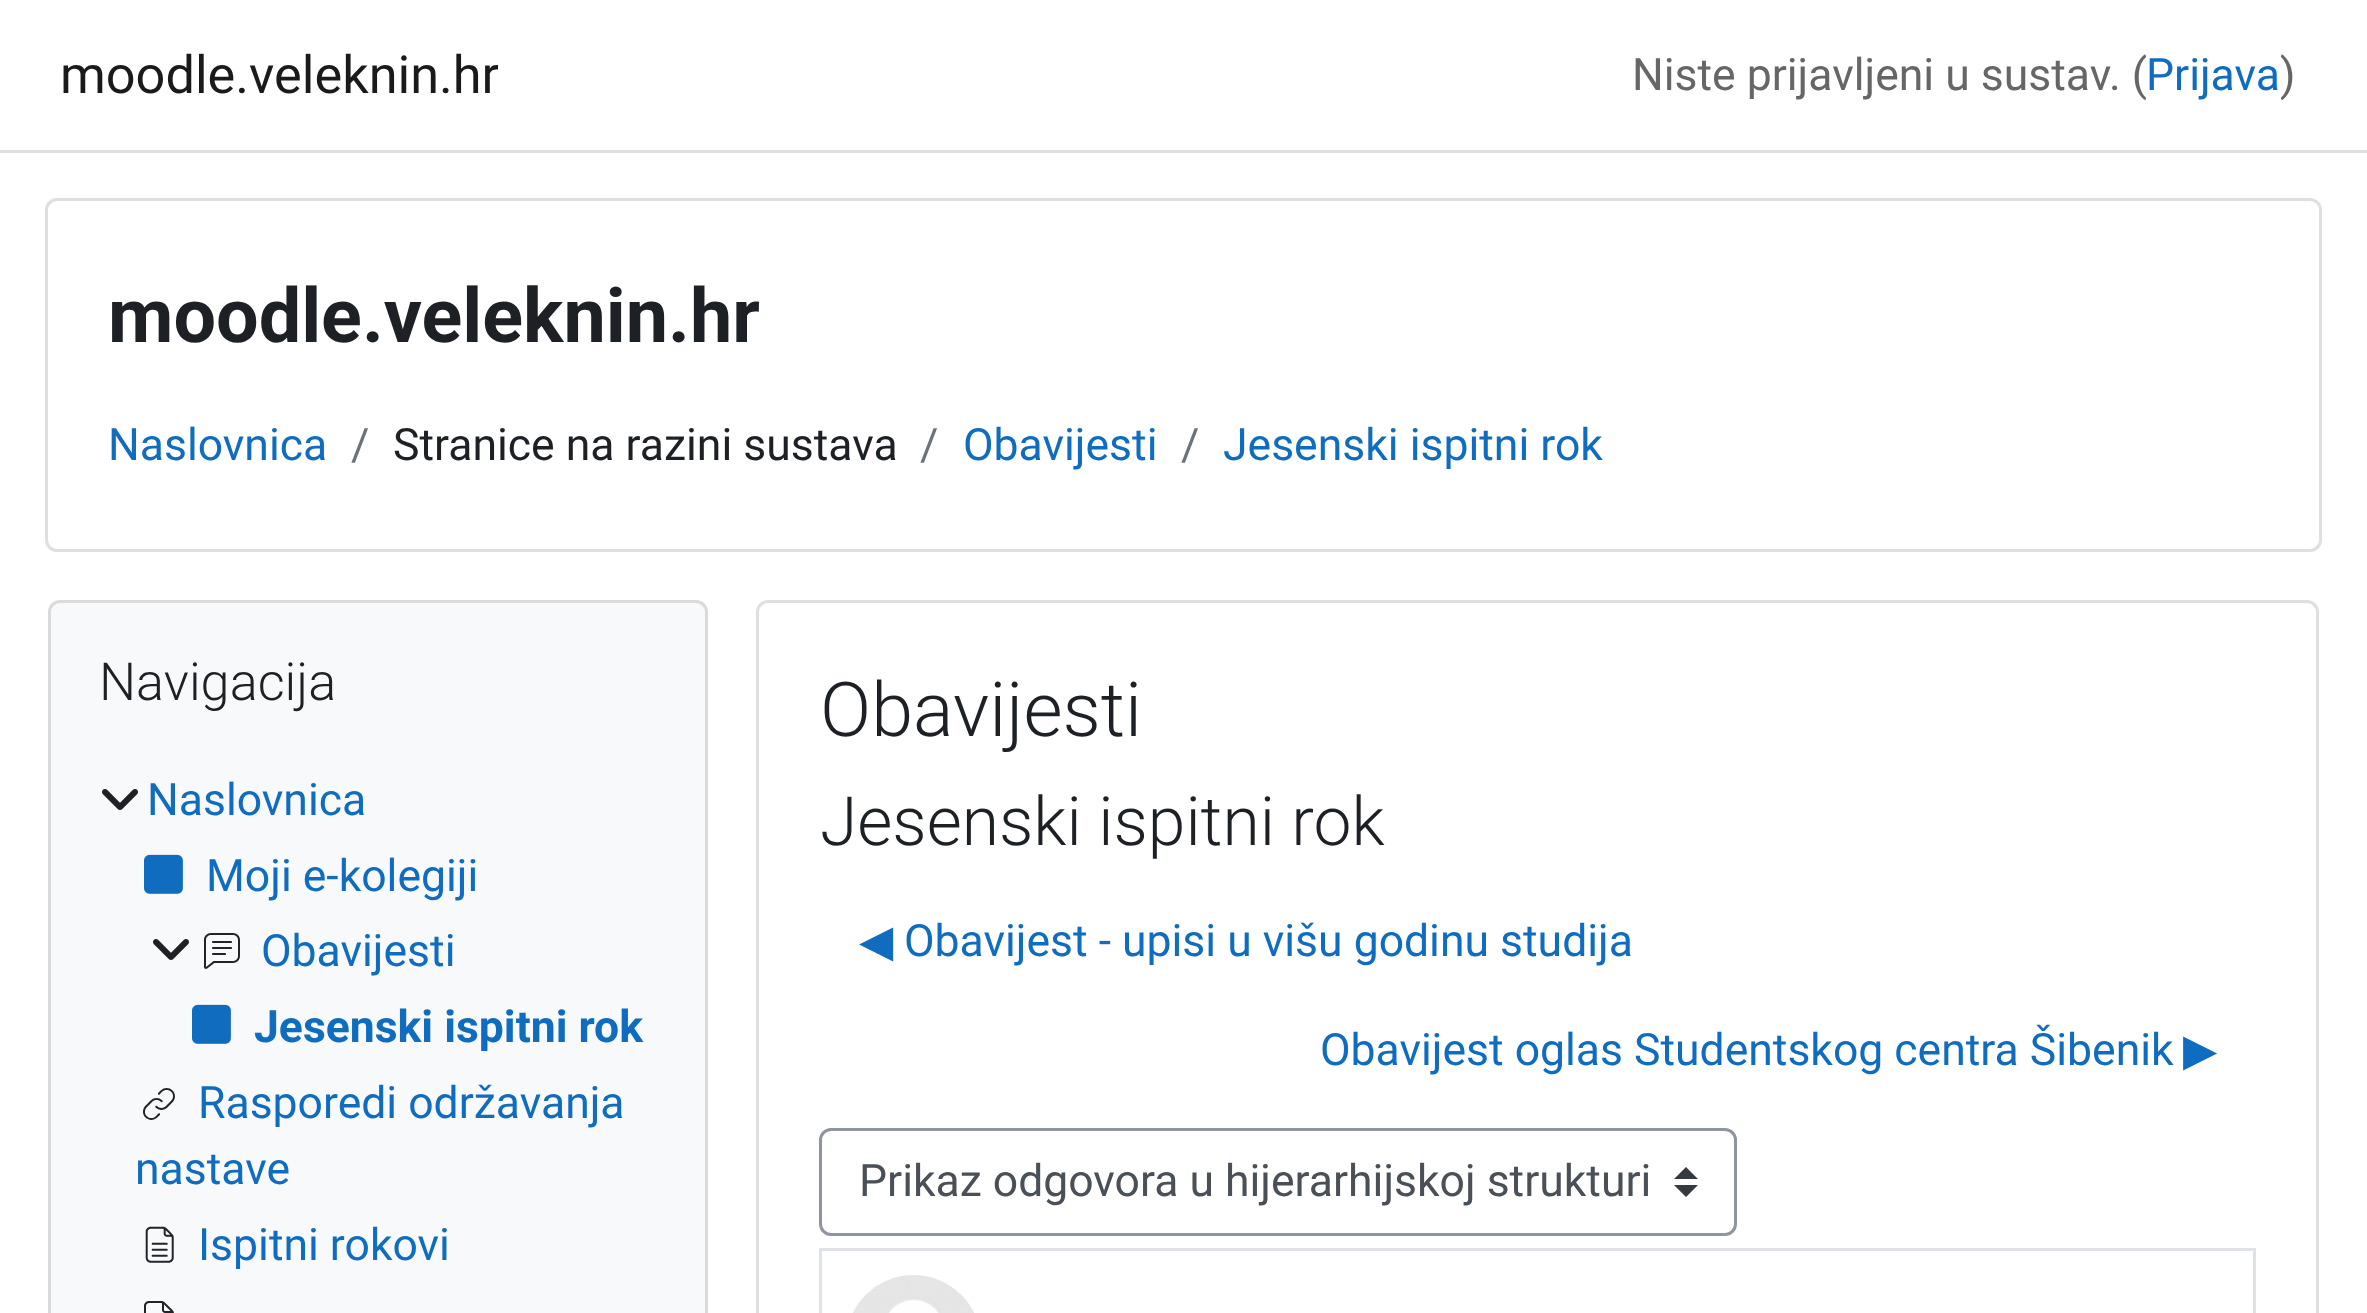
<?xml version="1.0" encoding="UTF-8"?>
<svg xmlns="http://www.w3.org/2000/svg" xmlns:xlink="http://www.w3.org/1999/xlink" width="2367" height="1313">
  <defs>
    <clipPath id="clip1"><rect x="60" y="36" width="438" height="78" /></clipPath>
    <clipPath id="clip2"><rect x="108" y="261" width="651" height="114" /></clipPath>
  </defs>
  <rect width="100%" height="100%" fill="#ffffff" />
  <rect y="150" width="2367" height="3" fill="#dee2e6" />
  <rect x="46.5" y="199.5" width="2274" height="351" rx="10.5" fill="none" stroke="#dfdfdf" stroke-width="3" />
  <rect x="48" y="600" width="660" height="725" rx="12" fill="#f8f9fa" />
  <rect x="49.5" y="601.5" width="657" height="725" rx="10.5" fill="none" stroke="#000000" stroke-opacity="0.12" stroke-width="3" />
  <image x="102" y="789" width="36" height="21" xlink:href="image1.png" />
  <image x="144" y="854" width="39" height="40" xlink:href="image2.png" />
  <image x="153" y="939" width="36" height="21" xlink:href="image1.png" />
  <image x="204" y="933" width="36" height="36" xlink:href="image3.png" />
  <image x="192" y="1004" width="39" height="40" xlink:href="image2.png" />
  <image x="143" y="1088" width="32" height="32" xlink:href="image4.png" />
  <image x="145" y="1226" width="29" height="37" xlink:href="image5.png" />
  <image x="144" y="1301" width="30" height="12" xlink:href="image6.png" />
  <rect x="757.5" y="601.5" width="1560" height="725" rx="10.5" fill="none" stroke="#dfdfdf" stroke-width="3" />
  <path d="M 1686 1167 l -12 12 h 24 z m 0 30 l -12 -12 h 24 z" fill="#343a40" />
  <rect x="820.5" y="1129.5" width="915" height="105" rx="10.5" fill="none" stroke="#8f959e" stroke-width="3" />
  <rect x="820.5" y="1249.5" width="1434" height="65" fill="none" stroke="#dee2e6" stroke-width="3" />
  <image x="853" y="1275" width="121" height="38" xlink:href="image7.png" />
  <g clip-path="url(#clip1)">
    <text x="60" y="93" style="font-family: Roboto; font-size: 52.25px; fill: #1a1a1a">moodle.veleknin.hr</text>
  </g>
  <text x="1632" y="90" style="font-family: Roboto; font-size: 44.5px; fill: #666666">Niste prijavljeni u sustav. (</text>
  <text x="2146" y="90" style="font-family: Roboto; font-size: 44.5px; fill: #0f6cbf">Prijava</text>
  <text x="2280" y="90" style="font-family: Roboto; font-size: 44.5px; fill: #666666">)</text>
  <g clip-path="url(#clip2)">
    <text x="108" y="342" style="font-family: Roboto; font-size: 75.5px; font-weight: bold; fill: #1d2125">moodle.veleknin.hr</text>
  </g>
  <text x="108" y="460" style="font-family: Roboto; font-size: 44.5px; fill: #0f6cbf">Naslovnica</text>
  <text x="351" y="460" style="font-family: Roboto; font-size: 44.5px; fill: #6a737b">/</text>
  <text x="393" y="460" style="font-family: Roboto; font-size: 44.5px; fill: #1d2125">Stranice na razini sustava</text>
  <text x="920" y="460" style="font-family: Roboto; font-size: 44.5px; fill: #6a737b">/</text>
  <text x="963" y="460" style="font-family: Roboto; font-size: 44.5px; fill: #0f6cbf">Obavijesti</text>
  <text x="1181" y="460" style="font-family: Roboto; font-size: 44.5px; fill: #6a737b">/</text>
  <text x="1223" y="460" style="font-family: Roboto; font-size: 44.5px; fill: #0f6cbf">Jesenski ispitni rok</text>
  <text x="99" y="700" style="font-family: Roboto; font-size: 52.25px; font-weight: 300; fill: #1d2125">Navigacija</text>
  <text x="147" y="815" style="font-family: Roboto; font-size: 44.5px; fill: #0f6cbf">Naslovnica</text>
  <text x="206" y="891" style="font-family: Roboto; font-size: 44.5px; fill: #0f6cbf">Moji e-kolegiji</text>
  <text x="261" y="966" style="font-family: Roboto; font-size: 44.5px; fill: #0f6cbf">Obavijesti</text>
  <text x="254" y="1042" style="font-family: Roboto; font-size: 44.5px; font-weight: bold; fill: #0f6cbf">Jesenski ispitni rok</text>
  <text x="198" y="1118" style="font-family: Roboto; font-size: 44.5px; fill: #0f6cbf">Rasporedi održavanja</text>
  <text x="135" y="1184" style="font-family: Roboto; font-size: 44.5px; fill: #0f6cbf">nastave</text>
  <text x="198" y="1260" style="font-family: Roboto; font-size: 44.5px; fill: #0f6cbf">Ispitni rokovi</text>
  <text x="820" y="736" style="font-family: Roboto; font-size: 75.5px; font-weight: 300; fill: #1d2125">Obavijesti</text>
  <text x="820" y="845" style="font-family: Roboto; font-size: 67.75px; font-weight: 300; fill: #1d2125">Jesenski ispitni rok</text>
  <text x="859" y="956" style="font-family: DejaVu Sans; font-size: 44.5px; fill: #0f6cbf">◀︎</text>
  <text x="904" y="956" style="font-family: Roboto; font-size: 44.5px; fill: #0f6cbf">Obavijest - upisi u višu godinu studija</text>
  <text x="1320" y="1065" style="font-family: Roboto; font-size: 44.5px; fill: #0f6cbf">Obavijest oglas Studentskog centra Šibenik</text>
  <text x="2183" y="1065" style="font-family: DejaVu Sans; font-size: 44.5px; fill: #0f6cbf">▶︎</text>
  <text x="859" y="1196" style="font-family: Roboto; font-size: 44.5px; fill: #495057">Prikaz odgovora u hijerarhijskoj strukturi</text>
</svg>
